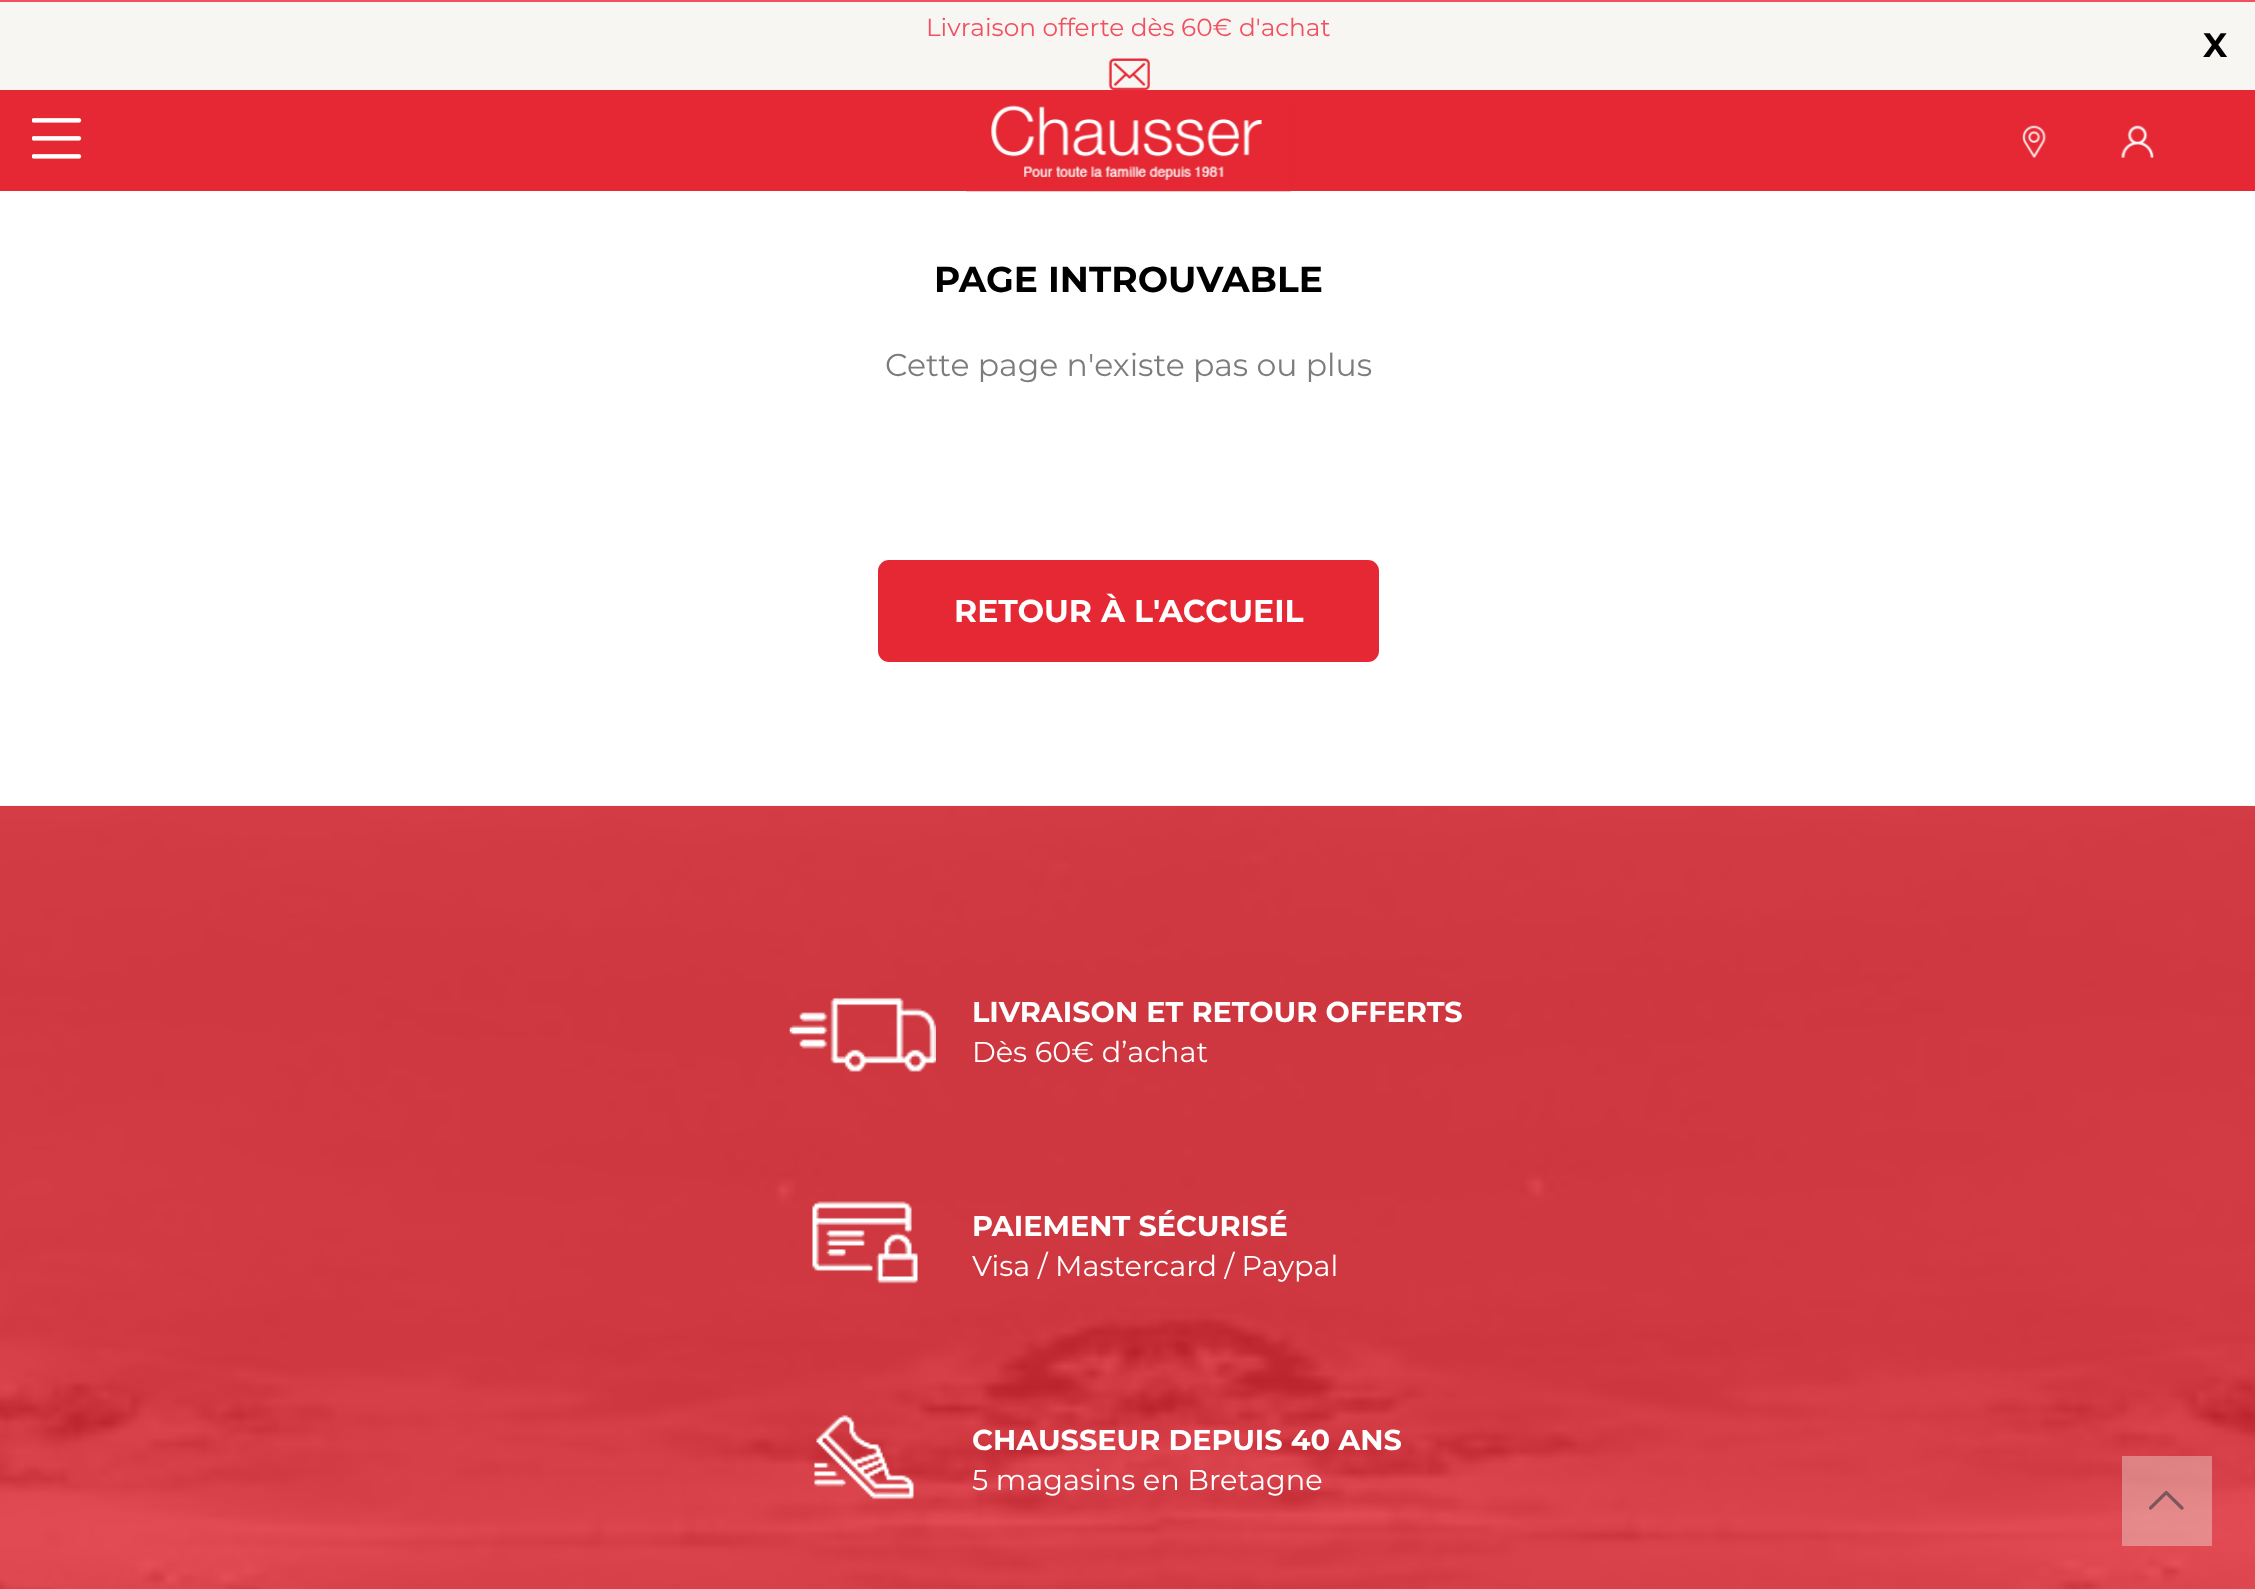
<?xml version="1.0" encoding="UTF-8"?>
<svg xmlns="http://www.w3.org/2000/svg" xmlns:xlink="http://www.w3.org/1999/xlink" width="2255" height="1589">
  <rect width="100%" height="100%" fill="#ffffff" />
  <rect y="2" width="2255" height="88" fill="#f8f6f3" />
  <rect width="2255" height="2" fill="#f15060" />
  <image x="1108" y="58" width="42" height="32" xlink:href="image1.png" />
  <rect y="90" width="2255" height="101" fill="#e52833" />
  <image x="32" y="118" width="50" height="41" xlink:href="image2.png" />
  <image x="965" y="105" width="327" height="87" xlink:href="image3.png" />
  <image x="2022" y="125" width="25" height="33" xlink:href="image4.png" />
  <image x="2121" y="125" width="33" height="33" xlink:href="image5.png" />
  <rect x="880.5" y="562.5" width="496" height="97" rx="8.5" fill="#e52833" stroke="#e52833" stroke-width="5" />
  <rect y="806" width="2255" height="783" fill="#e52833" />
  <image x="0" y="805" width="2255" height="784" xlink:href="image7.png" />
  <rect x="2122" y="1456" width="90" height="90" fill="#eee9e2" fill-opacity="0.4" />
  <image x="2149" y="1491" width="35" height="19" xlink:href="image6.png" />
  <image x="789" y="997" width="147" height="75" xlink:href="image8.png" />
  <image x="812" y="1201" width="106" height="83" xlink:href="image9.png" />
  <image x="814" y="1415" width="100" height="85" xlink:href="image10.png" />
  <text x="926" y="36" style="font-family: Montserrat; font-size: 24.75px; fill: #f15060">Livraison offerte dès 60€ d'achat</text>
  <text x="2203" y="57" style="font-family: Montserrat; font-size: 34px; font-weight: bold; fill: #000000">X</text>
  <text x="934" y="292" style="font-family: Montserrat; font-size: 36px; font-weight: bold; fill: #000000">PAGE INTROUVABLE</text>
  <text x="885" y="376" style="font-family: Montserrat; font-size: 31.5px; fill: #7c7c7c">Cette page n'existe pas ou plus</text>
  <text x="954" y="622" style="font-family: Montserrat; font-size: 31.5px; font-weight: bold; fill: #ffffff">RETOUR À L'ACCUEIL</text>
  <text x="972" y="1022" style="font-family: Montserrat; font-size: 28.75px; font-weight: bold; fill: #ffffff">LIVRAISON ET RETOUR OFFERTS</text>
  <text x="972" y="1062" style="font-family: Montserrat; font-size: 28.75px; fill: #ffffff">Dès 60€ d’achat</text>
  <text x="972" y="1236" style="font-family: Montserrat; font-size: 28.75px; font-weight: bold; fill: #ffffff">PAIEMENT SÉCURISÉ</text>
  <text x="972" y="1276" style="font-family: Montserrat; font-size: 28.75px; fill: #ffffff">Visa / Mastercard / Paypal</text>
  <text x="972" y="1450" style="font-family: Montserrat; font-size: 28.75px; font-weight: bold; fill: #ffffff">CHAUSSEUR DEPUIS 40 ANS</text>
  <text x="972" y="1490" style="font-family: Montserrat; font-size: 28.75px; fill: #ffffff">5 magasins en Bretagne</text>
</svg>
